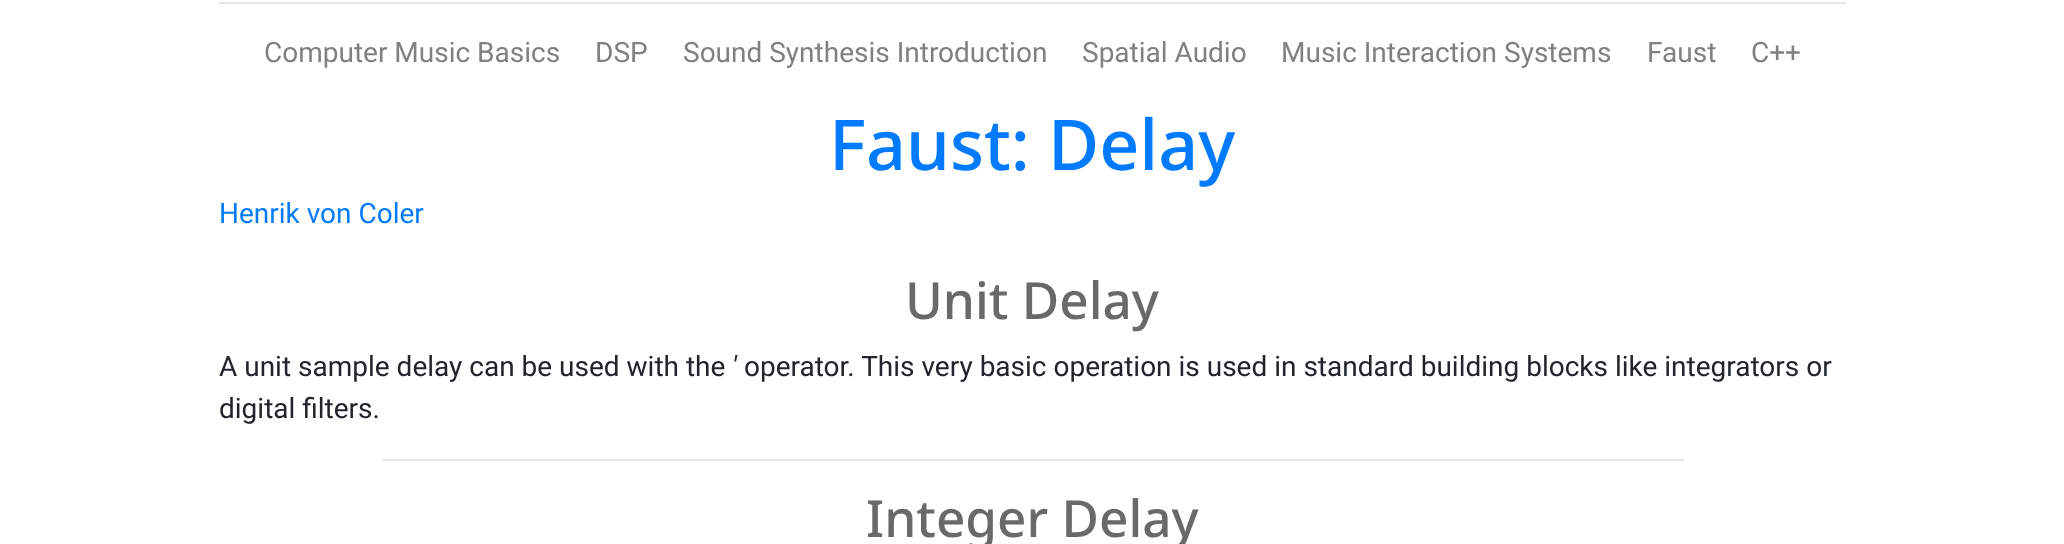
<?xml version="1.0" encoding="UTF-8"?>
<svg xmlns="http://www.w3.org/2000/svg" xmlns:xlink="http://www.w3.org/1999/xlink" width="2064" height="544">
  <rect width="100%" height="100%" fill="#ffffff" />
  <rect x="219" y="2" width="1627" height="2" fill="#e5e5e5" />
  <rect x="382" y="459" width="1302" height="2" fill="#e6e6e6" />
  <text x="264" y="62" style="font-family: Roboto; font-size: 28px; fill: #808080">Computer Music Basics</text>
  <text x="595" y="62" style="font-family: Roboto; font-size: 28px; fill: #808080">DSP</text>
  <text x="683" y="62" style="font-family: Roboto; font-size: 28px; fill: #808080">Sound Synthesis Introduction</text>
  <text x="1082" y="62" style="font-family: Roboto; font-size: 28px; fill: #808080">Spatial Audio</text>
  <text x="1281" y="62" style="font-family: Roboto; font-size: 28px; fill: #808080">Music Interaction Systems</text>
  <text x="1647" y="62" style="font-family: Roboto; font-size: 28px; fill: #808080">Faust</text>
  <text x="1751" y="62" style="font-family: Roboto; font-size: 28px; fill: #808080">C++</text>
  <text x="829" y="170" style="font-family: Noto Sans; font-size: 70px; font-weight: 500; fill: #007bff">Faust: Delay</text>
  <text x="219" y="223" style="font-family: Roboto; font-size: 28px; fill: #007bff">Henrik von Coler</text>
  <text x="905" y="319" style="font-family: Noto Sans; font-size: 51.25px; font-weight: 500; fill: #696969">Unit Delay</text>
  <text x="219" y="376" style="font-family: Roboto; font-size: 28px; fill: #212529">A unit sample delay can be used with the</text>
  <text x="732" y="376" style="font-family: Roboto; font-size: 28px; font-style: italic; fill: #212529">'</text>
  <text x="744" y="376" style="font-family: Roboto; font-size: 28px; fill: #212529">operator. This very basic operation is used in standard building blocks like integrators or</text>
  <text x="219" y="418" style="font-family: Roboto; font-size: 28px; fill: #212529">digital filters.</text>
  <text x="866" y="537" style="font-family: Noto Sans; font-size: 51.25px; font-weight: 500; fill: #696969">Integer Delay</text>
</svg>
